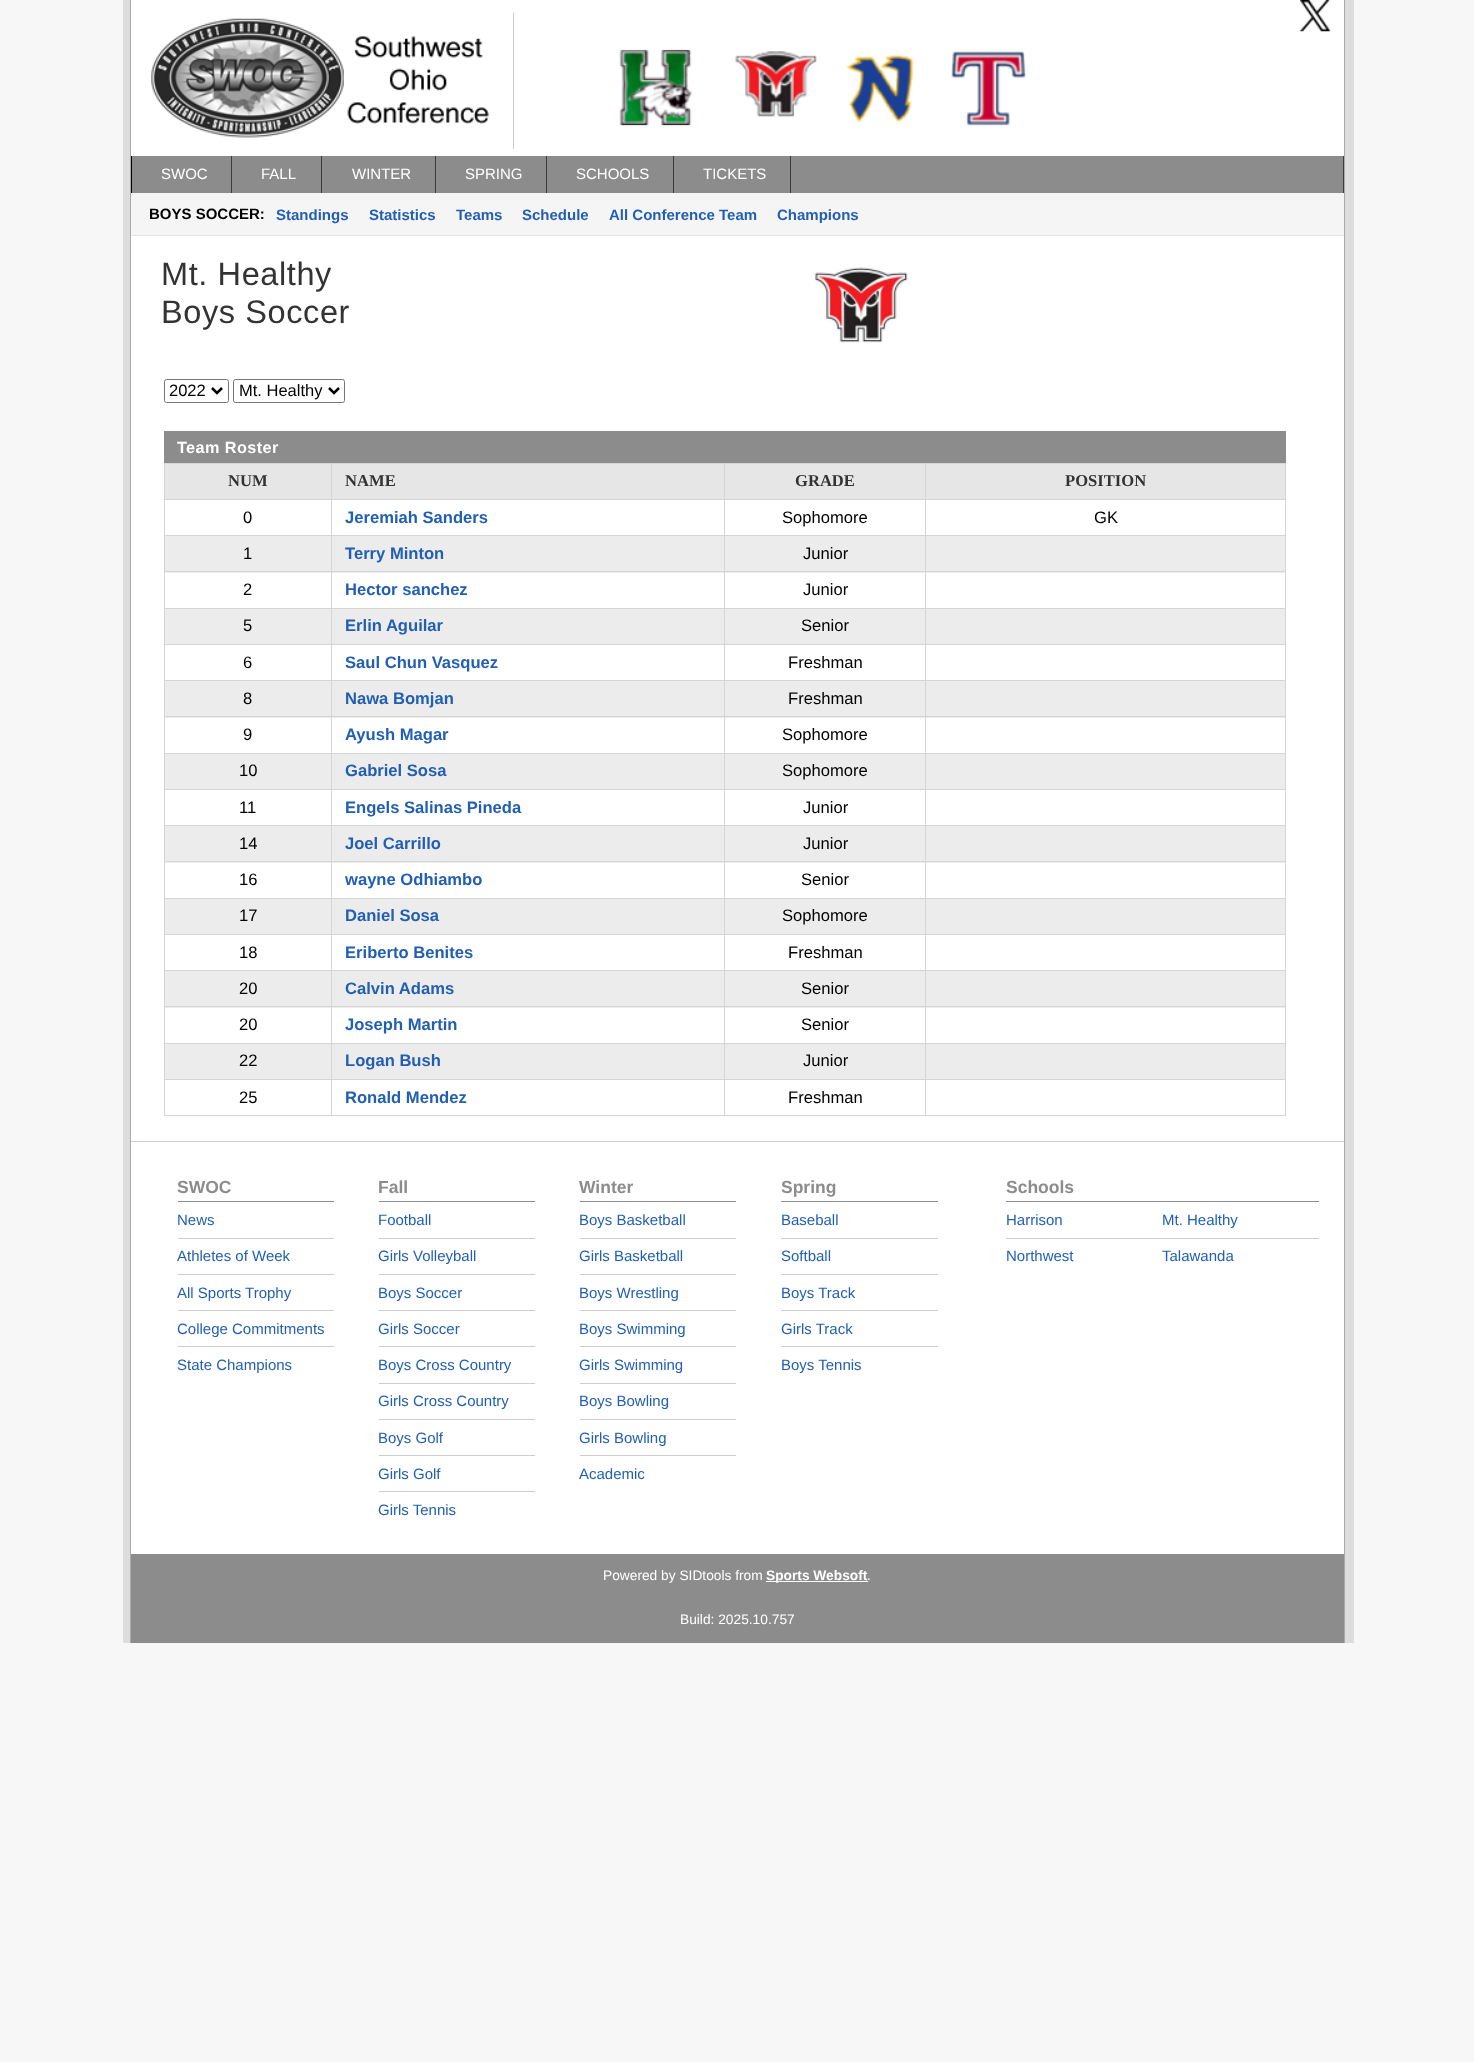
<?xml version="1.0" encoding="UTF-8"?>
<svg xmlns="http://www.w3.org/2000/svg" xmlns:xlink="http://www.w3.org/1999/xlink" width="1474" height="2062">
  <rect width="100%" height="100%" fill="#f7f7f7" />
  <rect x="123" width="1231" height="1643" fill="#dddddd" />
  <rect x="131" width="1213" height="1554" fill="#ffffff" />
  <rect x="1344" width="1" height="1643" fill="#aaaaaa" />
  <rect x="130" width="1" height="1643" fill="#aaaaaa" />
  <image x="151" y="18" width="338" height="120" xlink:href="image1.png" />
  <rect x="513" y="13" width="1" height="136" fill="#cccccc" />
  <image x="619" y="49" width="407" height="77" xlink:href="image2.png" />
  <image x="1300" y="0" width="31" height="32" xlink:href="image3.png" />
  <rect x="132" y="156" width="1211" height="37" fill="#8c8c8c" />
  <rect x="231" y="156" width="1" height="38" fill="#3c3c3c" />
  <rect x="131" y="156" width="1" height="38" fill="#000000" />
  <rect x="321" y="156" width="1" height="38" fill="#3c3c3c" />
  <rect x="435" y="156" width="1" height="38" fill="#3c3c3c" />
  <rect x="546" y="156" width="1" height="38" fill="#3c3c3c" />
  <rect x="673" y="156" width="1" height="38" fill="#3c3c3c" />
  <rect x="790" y="156" width="1" height="38" fill="#3c3c3c" />
  <rect x="1343" y="156" width="1" height="38" fill="#3c3c3c" />
  <rect x="131" y="193" width="1213" height="42" fill="#f5f5f5" />
  <rect x="131" y="235" width="1213" height="1" fill="#e5e5e5" />
  <image x="814" y="267" width="94" height="76" xlink:href="image4.png" />
  <rect x="164.5" y="379.5" width="64" height="23" rx="2" fill="none" stroke="#767676" />
  <path d="M 212 388 l 5 5 l 5 -5" fill="none" stroke="#000000" stroke-width="2.5" />
  <rect x="233.5" y="379.5" width="111" height="23" rx="2" fill="none" stroke="#767676" />
  <path d="M 329 388 l 5 5 l 5 -5" fill="none" stroke="#000000" stroke-width="2.5" />
  <rect x="164" y="1115" width="1122" height="1" fill="#d5d5d5" />
  <rect x="164" y="431" width="1121" height="32" fill="#8c8c8c" />
  <rect x="1285" y="431" width="1" height="33" fill="#8c8c8c" />
  <rect x="165" y="464" width="559" height="35" fill="#e6e6e6" />
  <rect x="925" y="463" width="361" height="1" fill="#d5d5d5" />
  <rect x="925" y="499" width="361" height="1" fill="#d5d5d5" />
  <rect x="925" y="535" width="361" height="1" fill="#d5d5d5" />
  <rect x="165" y="536" width="1120" height="37" fill="#ececec" />
  <rect x="925" y="571" width="361" height="1" fill="#d5d5d5" />
  <rect x="925" y="608" width="361" height="1" fill="#d5d5d5" />
  <rect x="165" y="609" width="1120" height="35" fill="#ececec" />
  <rect x="925" y="644" width="361" height="1" fill="#d5d5d5" />
  <rect x="925" y="680" width="361" height="1" fill="#d5d5d5" />
  <rect x="165" y="681" width="1120" height="37" fill="#ececec" />
  <rect x="925" y="716" width="361" height="1" fill="#d5d5d5" />
  <rect x="925" y="753" width="361" height="1" fill="#d5d5d5" />
  <rect x="165" y="754" width="1120" height="35" fill="#ececec" />
  <rect x="925" y="789" width="361" height="1" fill="#d5d5d5" />
  <rect x="925" y="825" width="361" height="1" fill="#d5d5d5" />
  <rect x="165" y="826" width="1120" height="37" fill="#ececec" />
  <rect x="925" y="861" width="361" height="1" fill="#d5d5d5" />
  <rect x="925" y="898" width="361" height="1" fill="#d5d5d5" />
  <rect x="165" y="899" width="1120" height="35" fill="#ececec" />
  <rect x="925" y="934" width="361" height="1" fill="#d5d5d5" />
  <rect x="925" y="970" width="361" height="1" fill="#d5d5d5" />
  <rect x="165" y="971" width="1120" height="37" fill="#ececec" />
  <rect x="925" y="1006" width="361" height="1" fill="#d5d5d5" />
  <rect x="925" y="1043" width="361" height="1" fill="#d5d5d5" />
  <rect x="165" y="1044" width="1120" height="35" fill="#ececec" />
  <rect x="925" y="1079" width="361" height="1" fill="#d5d5d5" />
  <rect x="925" y="1079" width="1" height="37" fill="#d5d5d5" />
  <rect x="724" y="1079" width="202" height="1" fill="#d5d5d5" />
  <rect x="925" y="1043" width="1" height="37" fill="#d5d5d5" />
  <rect x="724" y="1043" width="202" height="1" fill="#d5d5d5" />
  <rect x="925" y="1006" width="1" height="38" fill="#d5d5d5" />
  <rect x="724" y="1006" width="202" height="1" fill="#d5d5d5" />
  <rect x="925" y="970" width="1" height="38" fill="#d5d5d5" />
  <rect x="724" y="970" width="202" height="1" fill="#d5d5d5" />
  <rect x="925" y="934" width="1" height="37" fill="#d5d5d5" />
  <rect x="724" y="934" width="202" height="1" fill="#d5d5d5" />
  <rect x="925" y="898" width="1" height="37" fill="#d5d5d5" />
  <rect x="724" y="898" width="202" height="1" fill="#d5d5d5" />
  <rect x="925" y="861" width="1" height="38" fill="#d5d5d5" />
  <rect x="724" y="861" width="202" height="1" fill="#d5d5d5" />
  <rect x="925" y="825" width="1" height="38" fill="#d5d5d5" />
  <rect x="724" y="825" width="202" height="1" fill="#d5d5d5" />
  <rect x="925" y="789" width="1" height="37" fill="#d5d5d5" />
  <rect x="724" y="789" width="202" height="1" fill="#d5d5d5" />
  <rect x="925" y="753" width="1" height="37" fill="#d5d5d5" />
  <rect x="724" y="753" width="202" height="1" fill="#d5d5d5" />
  <rect x="925" y="716" width="1" height="38" fill="#d5d5d5" />
  <rect x="724" y="716" width="202" height="1" fill="#d5d5d5" />
  <rect x="925" y="680" width="1" height="38" fill="#d5d5d5" />
  <rect x="724" y="680" width="202" height="1" fill="#d5d5d5" />
  <rect x="925" y="644" width="1" height="37" fill="#d5d5d5" />
  <rect x="724" y="644" width="202" height="1" fill="#d5d5d5" />
  <rect x="925" y="608" width="1" height="37" fill="#d5d5d5" />
  <rect x="724" y="608" width="202" height="1" fill="#d5d5d5" />
  <rect x="925" y="571" width="1" height="38" fill="#d5d5d5" />
  <rect x="724" y="571" width="202" height="1" fill="#d5d5d5" />
  <rect x="925" y="535" width="1" height="38" fill="#d5d5d5" />
  <rect x="724" y="535" width="202" height="1" fill="#d5d5d5" />
  <rect x="925" y="499" width="1" height="37" fill="#d5d5d5" />
  <rect x="724" y="499" width="202" height="1" fill="#d5d5d5" />
  <rect x="925" y="463" width="1" height="37" fill="#d5d5d5" />
  <rect x="724" y="463" width="202" height="1" fill="#d5d5d5" />
  <rect x="724" y="1079" width="1" height="37" fill="#d5d5d5" />
  <rect x="331" y="1079" width="394" height="1" fill="#d5d5d5" />
  <rect x="724" y="1043" width="1" height="37" fill="#d5d5d5" />
  <rect x="331" y="1043" width="394" height="1" fill="#d5d5d5" />
  <rect x="724" y="1006" width="1" height="38" fill="#d5d5d5" />
  <rect x="331" y="1006" width="394" height="1" fill="#d5d5d5" />
  <rect x="724" y="970" width="1" height="38" fill="#d5d5d5" />
  <rect x="331" y="970" width="394" height="1" fill="#d5d5d5" />
  <rect x="724" y="934" width="1" height="37" fill="#d5d5d5" />
  <rect x="331" y="934" width="394" height="1" fill="#d5d5d5" />
  <rect x="724" y="898" width="1" height="37" fill="#d5d5d5" />
  <rect x="331" y="898" width="394" height="1" fill="#d5d5d5" />
  <rect x="724" y="861" width="1" height="38" fill="#d5d5d5" />
  <rect x="331" y="861" width="394" height="1" fill="#d5d5d5" />
  <rect x="724" y="825" width="1" height="38" fill="#d5d5d5" />
  <rect x="331" y="825" width="394" height="1" fill="#d5d5d5" />
  <rect x="724" y="789" width="1" height="37" fill="#d5d5d5" />
  <rect x="331" y="789" width="394" height="1" fill="#d5d5d5" />
  <rect x="724" y="753" width="1" height="37" fill="#d5d5d5" />
  <rect x="331" y="753" width="394" height="1" fill="#d5d5d5" />
  <rect x="724" y="716" width="1" height="38" fill="#d5d5d5" />
  <rect x="331" y="716" width="394" height="1" fill="#d5d5d5" />
  <rect x="724" y="680" width="1" height="38" fill="#d5d5d5" />
  <rect x="331" y="680" width="394" height="1" fill="#d5d5d5" />
  <rect x="724" y="644" width="1" height="37" fill="#d5d5d5" />
  <rect x="331" y="644" width="394" height="1" fill="#d5d5d5" />
  <rect x="724" y="608" width="1" height="37" fill="#d5d5d5" />
  <rect x="331" y="608" width="394" height="1" fill="#d5d5d5" />
  <rect x="724" y="571" width="1" height="38" fill="#d5d5d5" />
  <rect x="331" y="571" width="394" height="1" fill="#d5d5d5" />
  <rect x="724" y="535" width="1" height="38" fill="#d5d5d5" />
  <rect x="331" y="535" width="394" height="1" fill="#d5d5d5" />
  <rect x="724" y="499" width="1" height="37" fill="#d5d5d5" />
  <rect x="331" y="499" width="394" height="1" fill="#d5d5d5" />
  <rect x="724" y="463" width="1" height="37" fill="#d5d5d5" />
  <rect x="331" y="463" width="394" height="1" fill="#d5d5d5" />
  <rect x="331" y="1079" width="1" height="37" fill="#d5d5d5" />
  <rect x="164" y="1079" width="169" height="1" fill="#d5d5d5" />
  <rect x="331" y="1043" width="1" height="37" fill="#d5d5d5" />
  <rect x="164" y="1043" width="169" height="1" fill="#d5d5d5" />
  <rect x="331" y="1006" width="1" height="38" fill="#d5d5d5" />
  <rect x="164" y="1006" width="169" height="1" fill="#d5d5d5" />
  <rect x="331" y="970" width="1" height="38" fill="#d5d5d5" />
  <rect x="164" y="970" width="169" height="1" fill="#d5d5d5" />
  <rect x="331" y="934" width="1" height="37" fill="#d5d5d5" />
  <rect x="164" y="934" width="169" height="1" fill="#d5d5d5" />
  <rect x="331" y="898" width="1" height="37" fill="#d5d5d5" />
  <rect x="164" y="898" width="169" height="1" fill="#d5d5d5" />
  <rect x="331" y="861" width="1" height="38" fill="#d5d5d5" />
  <rect x="164" y="861" width="169" height="1" fill="#d5d5d5" />
  <rect x="331" y="825" width="1" height="38" fill="#d5d5d5" />
  <rect x="164" y="825" width="169" height="1" fill="#d5d5d5" />
  <rect x="331" y="789" width="1" height="37" fill="#d5d5d5" />
  <rect x="164" y="789" width="169" height="1" fill="#d5d5d5" />
  <rect x="331" y="753" width="1" height="37" fill="#d5d5d5" />
  <rect x="164" y="753" width="169" height="1" fill="#d5d5d5" />
  <rect x="331" y="716" width="1" height="38" fill="#d5d5d5" />
  <rect x="164" y="716" width="169" height="1" fill="#d5d5d5" />
  <rect x="331" y="680" width="1" height="38" fill="#d5d5d5" />
  <rect x="164" y="680" width="169" height="1" fill="#d5d5d5" />
  <rect x="331" y="644" width="1" height="37" fill="#d5d5d5" />
  <rect x="164" y="644" width="169" height="1" fill="#d5d5d5" />
  <rect x="331" y="608" width="1" height="37" fill="#d5d5d5" />
  <rect x="164" y="608" width="169" height="1" fill="#d5d5d5" />
  <rect x="331" y="571" width="1" height="38" fill="#d5d5d5" />
  <rect x="164" y="571" width="169" height="1" fill="#d5d5d5" />
  <rect x="331" y="535" width="1" height="38" fill="#d5d5d5" />
  <rect x="164" y="535" width="169" height="1" fill="#d5d5d5" />
  <rect x="331" y="499" width="1" height="37" fill="#d5d5d5" />
  <rect x="164" y="499" width="169" height="1" fill="#d5d5d5" />
  <rect x="331" y="463" width="1" height="37" fill="#d5d5d5" />
  <rect x="164" y="463" width="169" height="1" fill="#d5d5d5" />
  <rect x="164" y="1079" width="1" height="37" fill="#d5d5d5" />
  <rect x="164" y="1043" width="1" height="37" fill="#d5d5d5" />
  <rect x="164" y="1006" width="1" height="38" fill="#d5d5d5" />
  <rect x="164" y="970" width="1" height="38" fill="#d5d5d5" />
  <rect x="164" y="934" width="1" height="37" fill="#d5d5d5" />
  <rect x="164" y="898" width="1" height="37" fill="#d5d5d5" />
  <rect x="164" y="861" width="1" height="38" fill="#d5d5d5" />
  <rect x="164" y="825" width="1" height="38" fill="#d5d5d5" />
  <rect x="164" y="789" width="1" height="37" fill="#d5d5d5" />
  <rect x="164" y="753" width="1" height="37" fill="#d5d5d5" />
  <rect x="164" y="716" width="1" height="38" fill="#d5d5d5" />
  <rect x="164" y="680" width="1" height="38" fill="#d5d5d5" />
  <rect x="164" y="644" width="1" height="37" fill="#d5d5d5" />
  <rect x="164" y="608" width="1" height="37" fill="#d5d5d5" />
  <rect x="164" y="571" width="1" height="38" fill="#d5d5d5" />
  <rect x="164" y="535" width="1" height="38" fill="#d5d5d5" />
  <rect x="164" y="499" width="1" height="37" fill="#d5d5d5" />
  <rect x="164" y="463" width="1" height="37" fill="#d5d5d5" />
  <rect x="725" y="464" width="200" height="35" fill="#e6e6e6" />
  <rect x="926" y="464" width="359" height="35" fill="#e6e6e6" />
  <rect x="1285" y="1079" width="1" height="37" fill="#d5d5d5" />
  <rect x="1285" y="1043" width="1" height="37" fill="#d5d5d5" />
  <rect x="1285" y="1006" width="1" height="38" fill="#d5d5d5" />
  <rect x="1285" y="970" width="1" height="38" fill="#d5d5d5" />
  <rect x="1285" y="934" width="1" height="37" fill="#d5d5d5" />
  <rect x="1285" y="898" width="1" height="37" fill="#d5d5d5" />
  <rect x="1285" y="861" width="1" height="38" fill="#d5d5d5" />
  <rect x="1285" y="825" width="1" height="38" fill="#d5d5d5" />
  <rect x="1285" y="789" width="1" height="37" fill="#d5d5d5" />
  <rect x="1285" y="753" width="1" height="37" fill="#d5d5d5" />
  <rect x="1285" y="716" width="1" height="38" fill="#d5d5d5" />
  <rect x="1285" y="680" width="1" height="38" fill="#d5d5d5" />
  <rect x="1285" y="644" width="1" height="37" fill="#d5d5d5" />
  <rect x="1285" y="608" width="1" height="37" fill="#d5d5d5" />
  <rect x="1285" y="571" width="1" height="38" fill="#d5d5d5" />
  <rect x="1285" y="535" width="1" height="38" fill="#d5d5d5" />
  <rect x="1285" y="499" width="1" height="37" fill="#d5d5d5" />
  <rect x="1285" y="463" width="1" height="37" fill="#d5d5d5" />
  <rect x="131" y="1141" width="1213" height="1" fill="#ccccea" />
  <rect x="178" y="1201" width="156" height="1" fill="#8c8c8c" />
  <rect x="178" y="1238" width="156" height="1" fill="#cccccc" />
  <rect x="178" y="1274" width="156" height="1" fill="#cccccc" />
  <rect x="178" y="1310" width="156" height="1" fill="#cccccc" />
  <rect x="178" y="1346" width="156" height="1" fill="#cccccc" />
  <rect x="379" y="1201" width="156" height="1" fill="#8c8c8c" />
  <rect x="379" y="1238" width="156" height="1" fill="#cccccc" />
  <rect x="379" y="1274" width="156" height="1" fill="#cccccc" />
  <rect x="379" y="1310" width="156" height="1" fill="#cccccc" />
  <rect x="379" y="1346" width="156" height="1" fill="#cccccc" />
  <rect x="379" y="1383" width="156" height="1" fill="#cccccc" />
  <rect x="379" y="1419" width="156" height="1" fill="#cccccc" />
  <rect x="379" y="1455" width="156" height="1" fill="#cccccc" />
  <rect x="379" y="1491" width="156" height="1" fill="#cccccc" />
  <rect x="580" y="1201" width="156" height="1" fill="#8c8c8c" />
  <rect x="580" y="1238" width="156" height="1" fill="#cccccc" />
  <rect x="580" y="1274" width="156" height="1" fill="#cccccc" />
  <rect x="580" y="1310" width="156" height="1" fill="#cccccc" />
  <rect x="580" y="1346" width="156" height="1" fill="#cccccc" />
  <rect x="580" y="1383" width="156" height="1" fill="#cccccc" />
  <rect x="580" y="1419" width="156" height="1" fill="#cccccc" />
  <rect x="580" y="1455" width="156" height="1" fill="#cccccc" />
  <rect x="781" y="1201" width="157" height="1" fill="#8c8c8c" />
  <rect x="781" y="1238" width="157" height="1" fill="#cccccc" />
  <rect x="781" y="1274" width="157" height="1" fill="#cccccc" />
  <rect x="781" y="1310" width="157" height="1" fill="#cccccc" />
  <rect x="781" y="1346" width="157" height="1" fill="#cccccc" />
  <rect x="1006" y="1201" width="313" height="1" fill="#8c8c8c" />
  <rect x="1006" y="1238" width="313" height="1" fill="#cccccc" />
  <rect x="131" y="1554" width="1213" height="89" fill="#8c8c8c" />
  <rect x="766" y="1581" width="102" height="1" fill="#ffffff" />
  <text x="161" y="179" style="font-family: Liberation Sans; font-size: 15px; fill: #ffffff">SWOC</text>
  <text x="261" y="179" style="font-family: Liberation Sans; font-size: 15px; fill: #ffffff">FALL</text>
  <text x="352" y="179" style="font-family: Liberation Sans; font-size: 15px; fill: #ffffff">WINTER</text>
  <text x="465" y="179" style="font-family: Liberation Sans; font-size: 15px; fill: #ffffff">SPRING</text>
  <text x="576" y="179" style="font-family: Liberation Sans; font-size: 15px; fill: #ffffff">SCHOOLS</text>
  <text x="703" y="179" style="font-family: Liberation Sans; font-size: 15px; fill: #ffffff">TICKETS</text>
  <text x="149" y="219" style="font-family: Liberation Sans; font-size: 15px; font-weight: bold; fill: #000000">BOYS SOCCER:</text>
  <text x="276" y="220" style="font-family: Liberation Sans; font-size: 15px; font-weight: bold; fill: #225fb2">Standings</text>
  <text x="369" y="220" style="font-family: Liberation Sans; font-size: 15px; font-weight: bold; fill: #225fb2">Statistics</text>
  <text x="456" y="220" style="font-family: Liberation Sans; font-size: 15px; font-weight: bold; fill: #225fb2">Teams</text>
  <text x="522" y="220" style="font-family: Liberation Sans; font-size: 15px; font-weight: bold; fill: #225fb2">Schedule</text>
  <text x="609" y="220" style="font-family: Liberation Sans; font-size: 15px; font-weight: bold; fill: #225fb2">All Conference Team</text>
  <text x="777" y="220" style="font-family: Liberation Sans; font-size: 15px; font-weight: bold; fill: #225fb2">Champions</text>
  <text x="161" y="285" style="font-family: Liberation Sans; font-size: 32.5px; letter-spacing: 0.6px; fill: #333333">Mt. Healthy</text>
  <text x="161" y="323" style="font-family: Liberation Sans; font-size: 32.5px; letter-spacing: 0.6px; fill: #333333">Boys Soccer</text>
  <text x="169" y="396" style="font-family: Liberation Sans; font-size: 16.5px; fill: #000000">2022</text>
  <text x="239" y="396" style="font-family: Liberation Sans; font-size: 16.5px; fill: #000000">Mt. Healthy</text>
  <text x="177" y="453" style="font-family: Liberation Sans; font-size: 16.25px; font-weight: bold; letter-spacing: 0.4px; fill: #ffffff">Team Roster</text>
  <text x="228" y="486" style="font-family: Liberation Serif; font-size: 16.6px; font-weight: bold; fill: #333333">NUM</text>
  <text x="345" y="486" style="font-family: Liberation Serif; font-size: 16.6px; font-weight: bold; fill: #333333">NAME</text>
  <text x="795" y="486" style="font-family: Liberation Serif; font-size: 16.6px; font-weight: bold; fill: #333333">GRADE</text>
  <text x="1065" y="486" style="font-family: Liberation Serif; font-size: 16.6px; font-weight: bold; fill: #333333">POSITION</text>
  <text x="243" y="523" style="font-family: Liberation Sans; font-size: 16.6px; fill: #000000">0</text>
  <text x="345" y="523" style="font-family: Liberation Sans; font-size: 16.6px; font-weight: bold; fill: #225fb2">Jeremiah Sanders</text>
  <text x="782" y="523" style="font-family: Liberation Sans; font-size: 16.6px; fill: #000000">Sophomore</text>
  <text x="1094" y="523" style="font-family: Liberation Sans; font-size: 16.6px; fill: #000000">GK</text>
  <text x="243" y="559" style="font-family: Liberation Sans; font-size: 16.6px; fill: #000000">1</text>
  <text x="345" y="559" style="font-family: Liberation Sans; font-size: 16.6px; font-weight: bold; fill: #225fb2">Terry Minton</text>
  <text x="803" y="559" style="font-family: Liberation Sans; font-size: 16.6px; fill: #000000">Junior</text>
  <text x="243" y="595" style="font-family: Liberation Sans; font-size: 16.6px; fill: #000000">2</text>
  <text x="345" y="595" style="font-family: Liberation Sans; font-size: 16.6px; font-weight: bold; fill: #225fb2">Hector sanchez</text>
  <text x="803" y="595" style="font-family: Liberation Sans; font-size: 16.6px; fill: #000000">Junior</text>
  <text x="243" y="631" style="font-family: Liberation Sans; font-size: 16.6px; fill: #000000">5</text>
  <text x="345" y="631" style="font-family: Liberation Sans; font-size: 16.6px; font-weight: bold; fill: #225fb2">Erlin Aguilar</text>
  <text x="801" y="631" style="font-family: Liberation Sans; font-size: 16.6px; fill: #000000">Senior</text>
  <text x="243" y="668" style="font-family: Liberation Sans; font-size: 16.6px; fill: #000000">6</text>
  <text x="345" y="668" style="font-family: Liberation Sans; font-size: 16.6px; font-weight: bold; fill: #225fb2">Saul Chun Vasquez</text>
  <text x="788" y="668" style="font-family: Liberation Sans; font-size: 16.6px; fill: #000000">Freshman</text>
  <text x="243" y="704" style="font-family: Liberation Sans; font-size: 16.6px; fill: #000000">8</text>
  <text x="345" y="704" style="font-family: Liberation Sans; font-size: 16.6px; font-weight: bold; fill: #225fb2">Nawa Bomjan</text>
  <text x="788" y="704" style="font-family: Liberation Sans; font-size: 16.6px; fill: #000000">Freshman</text>
  <text x="243" y="740" style="font-family: Liberation Sans; font-size: 16.6px; fill: #000000">9</text>
  <text x="345" y="740" style="font-family: Liberation Sans; font-size: 16.6px; font-weight: bold; fill: #225fb2">Ayush Magar</text>
  <text x="782" y="740" style="font-family: Liberation Sans; font-size: 16.6px; fill: #000000">Sophomore</text>
  <text x="239" y="776" style="font-family: Liberation Sans; font-size: 16.6px; fill: #000000">10</text>
  <text x="345" y="776" style="font-family: Liberation Sans; font-size: 16.6px; font-weight: bold; fill: #225fb2">Gabriel Sosa</text>
  <text x="782" y="776" style="font-family: Liberation Sans; font-size: 16.6px; fill: #000000">Sophomore</text>
  <text x="239" y="813" style="font-family: Liberation Sans; font-size: 16.6px; fill: #000000">11</text>
  <text x="345" y="813" style="font-family: Liberation Sans; font-size: 16.6px; font-weight: bold; fill: #225fb2">Engels Salinas Pineda</text>
  <text x="803" y="813" style="font-family: Liberation Sans; font-size: 16.6px; fill: #000000">Junior</text>
  <text x="239" y="849" style="font-family: Liberation Sans; font-size: 16.6px; fill: #000000">14</text>
  <text x="345" y="849" style="font-family: Liberation Sans; font-size: 16.6px; font-weight: bold; fill: #225fb2">Joel Carrillo</text>
  <text x="803" y="849" style="font-family: Liberation Sans; font-size: 16.6px; fill: #000000">Junior</text>
  <text x="239" y="885" style="font-family: Liberation Sans; font-size: 16.6px; fill: #000000">16</text>
  <text x="345" y="885" style="font-family: Liberation Sans; font-size: 16.6px; font-weight: bold; fill: #225fb2">wayne Odhiambo</text>
  <text x="801" y="885" style="font-family: Liberation Sans; font-size: 16.6px; fill: #000000">Senior</text>
  <text x="239" y="921" style="font-family: Liberation Sans; font-size: 16.6px; fill: #000000">17</text>
  <text x="345" y="921" style="font-family: Liberation Sans; font-size: 16.6px; font-weight: bold; fill: #225fb2">Daniel Sosa</text>
  <text x="782" y="921" style="font-family: Liberation Sans; font-size: 16.6px; fill: #000000">Sophomore</text>
  <text x="239" y="958" style="font-family: Liberation Sans; font-size: 16.6px; fill: #000000">18</text>
  <text x="345" y="958" style="font-family: Liberation Sans; font-size: 16.6px; font-weight: bold; fill: #225fb2">Eriberto Benites</text>
  <text x="788" y="958" style="font-family: Liberation Sans; font-size: 16.6px; fill: #000000">Freshman</text>
  <text x="239" y="994" style="font-family: Liberation Sans; font-size: 16.6px; fill: #000000">20</text>
  <text x="345" y="994" style="font-family: Liberation Sans; font-size: 16.6px; font-weight: bold; fill: #225fb2">Calvin Adams</text>
  <text x="801" y="994" style="font-family: Liberation Sans; font-size: 16.6px; fill: #000000">Senior</text>
  <text x="239" y="1030" style="font-family: Liberation Sans; font-size: 16.6px; fill: #000000">20</text>
  <text x="345" y="1030" style="font-family: Liberation Sans; font-size: 16.6px; font-weight: bold; fill: #225fb2">Joseph Martin</text>
  <text x="801" y="1030" style="font-family: Liberation Sans; font-size: 16.6px; fill: #000000">Senior</text>
  <text x="239" y="1066" style="font-family: Liberation Sans; font-size: 16.6px; fill: #000000">22</text>
  <text x="345" y="1066" style="font-family: Liberation Sans; font-size: 16.6px; font-weight: bold; fill: #225fb2">Logan Bush</text>
  <text x="803" y="1066" style="font-family: Liberation Sans; font-size: 16.6px; fill: #000000">Junior</text>
  <text x="239" y="1103" style="font-family: Liberation Sans; font-size: 16.6px; fill: #000000">25</text>
  <text x="345" y="1103" style="font-family: Liberation Sans; font-size: 16.6px; font-weight: bold; fill: #225fb2">Ronald Mendez</text>
  <text x="788" y="1103" style="font-family: Liberation Sans; font-size: 16.6px; fill: #000000">Freshman</text>
  <text x="177" y="1193" style="font-family: Liberation Sans; font-size: 17.5px; font-weight: bold; fill: #8c8c8c">SWOC</text>
  <text x="177" y="1225" style="font-family: Liberation Sans; font-size: 15px; fill: #225fb2">News</text>
  <text x="177" y="1261" style="font-family: Liberation Sans; font-size: 15px; fill: #225fb2">Athletes of Week</text>
  <text x="177" y="1298" style="font-family: Liberation Sans; font-size: 15px; fill: #225fb2">All Sports Trophy</text>
  <text x="177" y="1334" style="font-family: Liberation Sans; font-size: 15px; fill: #225fb2">College Commitments</text>
  <text x="177" y="1370" style="font-family: Liberation Sans; font-size: 15px; fill: #225fb2">State Champions</text>
  <text x="378" y="1193" style="font-family: Liberation Sans; font-size: 17.5px; font-weight: bold; fill: #8c8c8c">Fall</text>
  <text x="378" y="1225" style="font-family: Liberation Sans; font-size: 15px; fill: #225fb2">Football</text>
  <text x="378" y="1261" style="font-family: Liberation Sans; font-size: 15px; fill: #225fb2">Girls Volleyball</text>
  <text x="378" y="1298" style="font-family: Liberation Sans; font-size: 15px; fill: #225fb2">Boys Soccer</text>
  <text x="378" y="1334" style="font-family: Liberation Sans; font-size: 15px; fill: #225fb2">Girls Soccer</text>
  <text x="378" y="1370" style="font-family: Liberation Sans; font-size: 15px; fill: #225fb2">Boys Cross Country</text>
  <text x="378" y="1406" style="font-family: Liberation Sans; font-size: 15px; fill: #225fb2">Girls Cross Country</text>
  <text x="378" y="1443" style="font-family: Liberation Sans; font-size: 15px; fill: #225fb2">Boys Golf</text>
  <text x="378" y="1479" style="font-family: Liberation Sans; font-size: 15px; fill: #225fb2">Girls Golf</text>
  <text x="378" y="1515" style="font-family: Liberation Sans; font-size: 15px; fill: #225fb2">Girls Tennis</text>
  <text x="579" y="1193" style="font-family: Liberation Sans; font-size: 17.5px; font-weight: bold; fill: #8c8c8c">Winter</text>
  <text x="579" y="1225" style="font-family: Liberation Sans; font-size: 15px; fill: #225fb2">Boys Basketball</text>
  <text x="579" y="1261" style="font-family: Liberation Sans; font-size: 15px; fill: #225fb2">Girls Basketball</text>
  <text x="579" y="1298" style="font-family: Liberation Sans; font-size: 15px; fill: #225fb2">Boys Wrestling</text>
  <text x="579" y="1334" style="font-family: Liberation Sans; font-size: 15px; fill: #225fb2">Boys Swimming</text>
  <text x="579" y="1370" style="font-family: Liberation Sans; font-size: 15px; fill: #225fb2">Girls Swimming</text>
  <text x="579" y="1406" style="font-family: Liberation Sans; font-size: 15px; fill: #225fb2">Boys Bowling</text>
  <text x="579" y="1443" style="font-family: Liberation Sans; font-size: 15px; fill: #225fb2">Girls Bowling</text>
  <text x="579" y="1479" style="font-family: Liberation Sans; font-size: 15px; fill: #225fb2">Academic</text>
  <text x="781" y="1193" style="font-family: Liberation Sans; font-size: 17.5px; font-weight: bold; fill: #8c8c8c">Spring</text>
  <text x="781" y="1225" style="font-family: Liberation Sans; font-size: 15px; fill: #225fb2">Baseball</text>
  <text x="781" y="1261" style="font-family: Liberation Sans; font-size: 15px; fill: #225fb2">Softball</text>
  <text x="781" y="1298" style="font-family: Liberation Sans; font-size: 15px; fill: #225fb2">Boys Track</text>
  <text x="781" y="1334" style="font-family: Liberation Sans; font-size: 15px; fill: #225fb2">Girls Track</text>
  <text x="781" y="1370" style="font-family: Liberation Sans; font-size: 15px; fill: #225fb2">Boys Tennis</text>
  <text x="1006" y="1193" style="font-family: Liberation Sans; font-size: 17.5px; font-weight: bold; fill: #8c8c8c">Schools</text>
  <text x="1006" y="1225" style="font-family: Liberation Sans; font-size: 15px; fill: #225fb2">Harrison</text>
  <text x="1006" y="1261" style="font-family: Liberation Sans; font-size: 15px; fill: #225fb2">Northwest</text>
  <text x="1162" y="1225" style="font-family: Liberation Sans; font-size: 15px; fill: #225fb2">Mt. Healthy</text>
  <text x="1162" y="1261" style="font-family: Liberation Sans; font-size: 15px; fill: #225fb2">Talawanda</text>
  <text x="603" y="1580" style="font-family: Liberation Sans; font-size: 13.75px; fill: #ffffff">Powered by SIDtools from</text>
  <text x="766" y="1580" style="font-family: Liberation Sans; font-size: 13.75px; font-weight: bold; fill: #ffffff">Sports Websoft</text>
  <text x="867" y="1580" style="font-family: Liberation Sans; font-size: 13.75px; fill: #ffffff">.</text>
  <text x="680" y="1624" style="font-family: Liberation Sans; font-size: 13.75px; fill: #ffffff">Build: 2025.10.757</text>
</svg>
